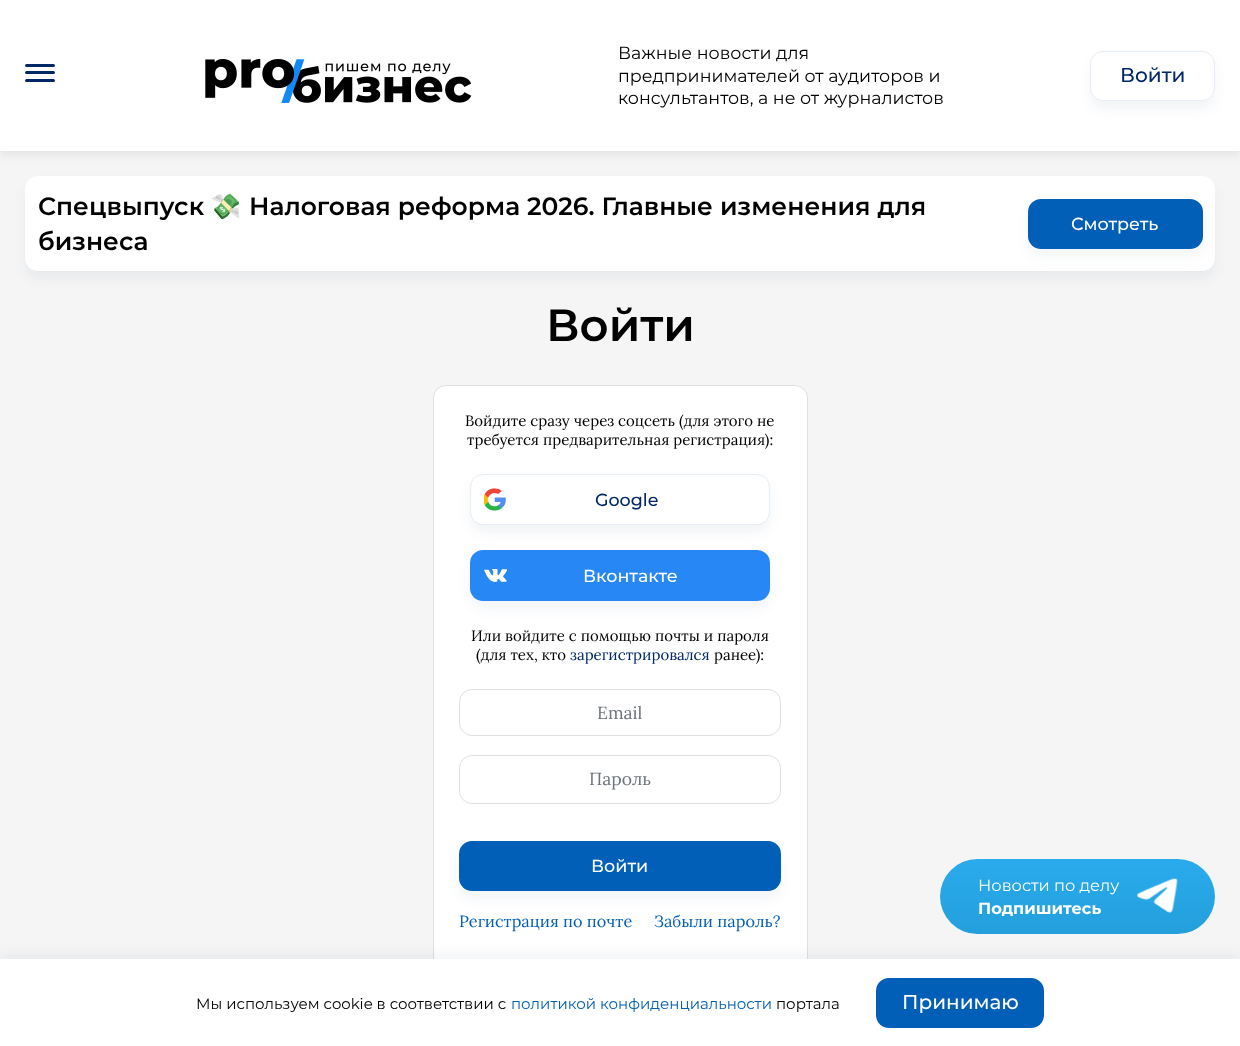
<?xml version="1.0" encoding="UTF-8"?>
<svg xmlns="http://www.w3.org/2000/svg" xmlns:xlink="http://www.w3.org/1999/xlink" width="1240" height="1046">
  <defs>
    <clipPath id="clip1"><path d="M 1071 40 h 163 v 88 h -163 z m 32 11 h 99 c 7 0 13 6 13 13 v 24 c 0 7 -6 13 -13 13 h -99 c -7 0 -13 -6 -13 -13 v -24 c 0 -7 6 -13 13 -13 z" clip-rule="evenodd" /></clipPath>
    <linearGradient id="g1" gradientUnits="userSpaceOnUse" x1="1078" y1="859" x2="1078" y2="934"><stop offset="0" stop-color="#2aabed" /><stop offset="1" stop-color="#239fdb" /></linearGradient>
  </defs>
  <rect width="100%" height="100%" fill="#f5f5f5" />
  <rect y="5" width="1240" height="151" fill="#000000" fill-opacity="0.06" filter="blur(4px)" />
  <rect width="1240" height="151" fill="#ffffff" />
  <rect x="25" y="64" width="30" height="3" rx="1.5" fill="#002766" />
  <rect x="25" y="71" width="30" height="3" rx="1.5" fill="#002766" />
  <rect x="25" y="79" width="30" height="3" rx="1.5" fill="#002766" />
  <image x="205" y="59" width="267" height="44" xlink:href="image1.png" />
  <g clip-path="url(#clip1)">
    <rect x="1090" y="59" width="125" height="50" rx="13" fill="#002766" fill-opacity="0.05" filter="blur(6px)" />
  </g>
  <rect x="1090.5" y="51.5" width="124" height="49" rx="12.5" fill="none" stroke="#e7edf6" />
  <rect x="25" y="184" width="1190" height="95" rx="13" fill="#002766" fill-opacity="0.05" filter="blur(6px)" />
  <rect x="25" y="176" width="1190" height="95" rx="13" fill="#ffffff" />
  <rect x="1028" y="206" width="175" height="50" rx="13" fill="#002766" fill-opacity="0.05" filter="blur(6px)" />
  <rect x="1028" y="199" width="175" height="50" rx="13" fill="#025fb7" />
  <rect x="433.5" y="385.5" width="374" height="624" rx="12.5" fill="#ffffff" stroke="#e0e0e0" />
  <rect x="470" y="481" width="300" height="52" rx="13" fill="#002766" fill-opacity="0.05" filter="blur(6px)" />
  <rect x="470.5" y="474.5" width="299" height="50" rx="12.5" fill="#ffffff" stroke="#e7edf6" />
  <image x="484" y="488" width="22" height="23" xlink:href="image2.png" />
  <rect x="470" y="558" width="300" height="51" rx="13" fill="#002766" fill-opacity="0.05" filter="blur(6px)" />
  <rect x="470" y="550" width="300" height="51" rx="13" fill="#2787f5" />
  <image x="484" y="569" width="23" height="13" xlink:href="image3.png" />
  <rect x="459.5" y="689.5" width="321" height="46" rx="12.5" fill="none" stroke="#e0e0e0" />
  <rect x="459.5" y="755.5" width="321" height="48" rx="12.5" fill="none" stroke="#e0e0e0" />
  <rect x="459" y="849" width="322" height="50" rx="13" fill="#002766" fill-opacity="0.05" filter="blur(6px)" />
  <rect x="459" y="841" width="322" height="50" rx="13" fill="#025fb7" />
  <rect x="940" y="859" width="275" height="75" rx="37.5" fill="url(#g1)" />
  <image x="1137" y="878" width="41" height="35" xlink:href="image4.png" />
  <rect y="953" width="1240" height="87" fill="#002766" fill-opacity="0.05" filter="blur(6px)" />
  <rect y="959" width="1240" height="87" fill="#ffffff" />
  <rect x="876" y="978" width="168" height="50" rx="13" fill="#025fb7" />
  <text x="618" y="59" style="font-family: Montserrat; font-size: 17.5px; fill: #000000">Важные новости для</text>
  <text x="618" y="82" style="font-family: Montserrat; font-size: 17.5px; fill: #000000">предпринимателей от аудиторов и</text>
  <text x="618" y="104" style="font-family: Montserrat; font-size: 17.5px; fill: #000000">консультантов, а не от журналистов</text>
  <text x="1120" y="82" style="font-family: Montserrat; font-size: 20px; font-weight: 500; fill: #002766">Войти</text>
  <text x="38" y="215" style="font-family: Montserrat; font-size: 25px; font-weight: 600; fill: #000000">Спецвыпуск</text>
  <text x="210" y="215" style="font-family: Noto Color Emoji; font-size: 25px; font-weight: bold; fill: #000000">💸</text>
  <text x="249" y="215" style="font-family: Montserrat; font-size: 25px; font-weight: 600; fill: #000000">Налоговая реформа 2026. Главные изменения для</text>
  <text x="1071" y="230" style="font-family: Montserrat; font-size: 17.5px; font-weight: 500; fill: #ffffff">Смотреть</text>
  <text x="38" y="250" style="font-family: Montserrat; font-size: 25px; font-weight: 600; fill: #000000">бизнеса</text>
  <text x="546" y="341" style="font-family: Montserrat; font-size: 45px; font-weight: 600; fill: #000000">Войти</text>
  <text x="465" y="426" style="font-family: Lora; font-size: 15px; fill: #000000">Войдите сразу через соцсеть (для этого не</text>
  <text x="467" y="445" style="font-family: Lora; font-size: 15px; fill: #000000">требуется предварительная регистрация):</text>
  <text x="595" y="506" style="font-family: Montserrat; font-size: 17.5px; font-weight: 500; fill: #002766">Google</text>
  <text x="583" y="582" style="font-family: Montserrat; font-size: 17.5px; font-weight: 500; fill: #ffffff">Вконтакте</text>
  <text x="471" y="641" style="font-family: Lora; font-size: 15px; fill: #000000">Или войдите с помощью почты и пароля</text>
  <text x="476" y="660" style="font-family: Lora; font-size: 15px; fill: #000000">(для тех, кто</text>
  <text x="570" y="660" style="font-family: Lora; font-size: 15px; fill: #002766">зарегистрировался</text>
  <text x="714" y="660" style="font-family: Lora; font-size: 15px; fill: #000000">ранее):</text>
  <text x="597" y="719" style="font-family: Lora; font-size: 17.5px; fill: #6e747c">Email</text>
  <text x="589" y="785" style="font-family: Lora; font-size: 17.5px; fill: #6e747c">Пароль</text>
  <text x="591" y="872" style="font-family: Montserrat; font-size: 17.5px; font-weight: 500; fill: #ffffff">Войти</text>
  <text x="459" y="927" style="font-family: Lora; font-size: 16.25px; fill: #025fb7">Регистрация по почте</text>
  <text x="654" y="927" style="font-family: Lora; font-size: 16.25px; fill: #025fb7">Забыли пароль?</text>
  <text x="978" y="891" style="font-family: Montserrat; font-size: 16.25px; fill: #ffffff">Новости по делу</text>
  <text x="978" y="914" style="font-family: Montserrat; font-size: 16.25px; font-weight: bold; fill: #ffffff">Подпишитесь</text>
  <text x="196" y="1009" style="font-family: Montserrat; font-size: 15px; fill: #000000">Мы используем cookie в соответствии с</text>
  <text x="511" y="1009" style="font-family: Montserrat; font-size: 15px; fill: #025fb7">политикой конфиденциальности</text>
  <text x="776" y="1009" style="font-family: Montserrat; font-size: 15px; fill: #000000">портала</text>
  <text x="902" y="1009" style="font-family: Montserrat; font-size: 20px; font-weight: 500; fill: #ffffff">Принимаю</text>
</svg>
